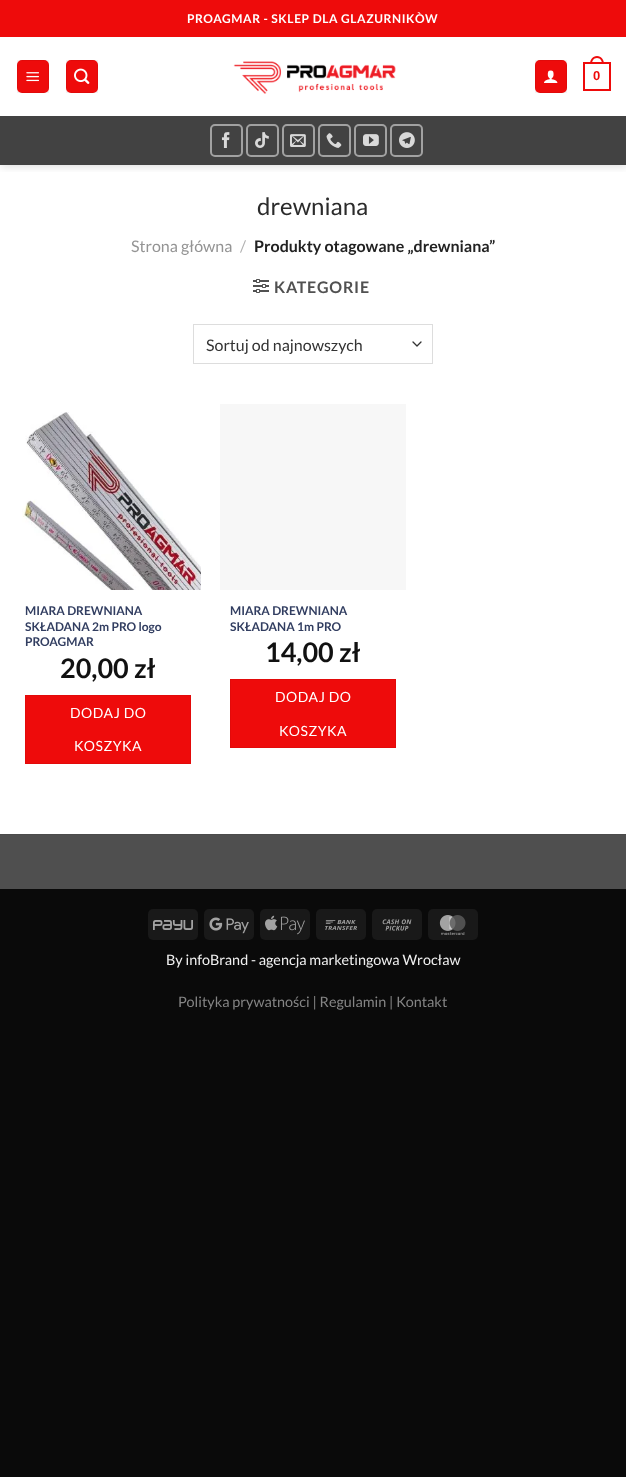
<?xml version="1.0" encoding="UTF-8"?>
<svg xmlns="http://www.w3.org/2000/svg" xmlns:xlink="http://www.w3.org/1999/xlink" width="626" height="1477">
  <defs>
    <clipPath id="clip1"><rect x="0" y="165" width="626" height="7" /></clipPath>
  </defs>
  <rect width="100%" height="100%" fill="#0a0a0a" />
  <rect y="37" width="626" height="797" fill="#ffffff" />
  <g clip-path="url(#clip1)">
    <rect x="1" y="1" width="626" height="165" fill="#000000" fill-opacity="0.15" filter="blur(5px)" />
  </g>
  <rect width="626" height="37" fill="#ee0b0b" />
  <rect x="17" y="60" width="32" height="33" rx="5" fill="#ee0b0b" />
  <rect x="17.5" y="60.5" width="31" height="32" fill="none" stroke="#000000" stroke-opacity="0.05" />
  <image x="26" y="72" width="13" height="10" xlink:href="image1.png" />
  <rect x="66" y="60" width="32" height="33" rx="5" fill="#ee0b0b" />
  <rect x="66.5" y="60.5" width="31" height="32" fill="none" stroke="#000000" stroke-opacity="0.05" />
  <image x="74" y="68" width="16" height="16" xlink:href="image2.png" />
  <image x="233" y="61" width="163" height="33" xlink:href="image3.png" />
  <rect x="535" y="60" width="32" height="33" rx="5" fill="#ee0b0b" />
  <rect x="535.5" y="60.5" width="31" height="32" fill="none" stroke="#000000" stroke-opacity="0.05" />
  <image x="544" y="70" width="14" height="13" xlink:href="image4.png" />
  <rect x="584" y="63" width="26" height="27" fill="none" stroke="#ee0b0b" stroke-width="2" />
  <path d="M 597 56 c 4.5 0 7 4 7 8 h -14 c 0 -4 2.5 -8 7 -8 z m 0 2 c 3.5 0 5 3 5 6 h -10 c 0 -3 1.5 -6 5 -6 z" fill="#ee0b0b" fill-rule="evenodd" />
  <rect y="116" width="626" height="49" fill="#424242" />
  <rect x="211" y="125" width="31" height="31" rx="4" fill="none" stroke="#a1a1a1" stroke-width="2" />
  <image x="221" y="132" width="9" height="16" xlink:href="image5.png" />
  <rect x="247" y="125" width="31" height="31" rx="4" fill="none" stroke="#a1a1a1" stroke-width="2" />
  <image x="255" y="132" width="14" height="16" xlink:href="image6.png" />
  <rect x="283" y="125" width="31" height="31" rx="4" fill="none" stroke="#a1a1a1" stroke-width="2" />
  <image x="290" y="134" width="16" height="13" xlink:href="image7.png" />
  <rect x="319" y="125" width="31" height="31" rx="4" fill="none" stroke="#a1a1a1" stroke-width="2" />
  <image x="326" y="133" width="16" height="15" xlink:href="image8.png" />
  <rect x="355" y="125" width="31" height="31" rx="4" fill="none" stroke="#a1a1a1" stroke-width="2" />
  <image x="363" y="134" width="16" height="12" xlink:href="image9.png" />
  <rect x="391" y="125" width="31" height="31" rx="4" fill="none" stroke="#a1a1a1" stroke-width="2" />
  <image x="399" y="132" width="16" height="16" xlink:href="image10.png" />
  <image x="253" y="279" width="16" height="14" xlink:href="image11.png" />
  <path d="M 413 342 l 4 4 l 4 -4" fill="none" stroke="#333333" stroke-width="1.3" stroke-linecap="round" stroke-linejoin="round" />
  <rect x="193.5" y="324.5" width="239" height="39" fill="none" stroke="#dddddd" />
  <image x="22" y="412" width="179" height="178" xlink:href="image12.png" />
  <rect x="25.5" y="695.5" width="165" height="68" fill="#ee0b0b" stroke="#e20a0a" />
  <rect x="220" y="404" width="186" height="186" fill="#f7f7f7" />
  <rect x="230.5" y="679.5" width="165" height="68" fill="#ee0b0b" stroke="#e20a0a" />
  <rect y="835" width="626" height="54" fill="#4f4f4f" />
  <rect y="834" width="626" height="1" fill="#4b4b4b" />
  <rect x="148" y="909" width="50" height="31" rx="5" fill="#191919" />
  <image x="153" y="920" width="40" height="10" xlink:href="image13.png" />
  <rect x="204" y="909" width="50" height="31" rx="5" fill="#191919" />
  <image x="209" y="917" width="40" height="17" xlink:href="image14.png" />
  <rect x="260" y="909" width="50" height="31" rx="5" fill="#191919" />
  <image x="265" y="915" width="40" height="20" xlink:href="image15.png" />
  <rect x="316" y="909" width="50" height="31" rx="5" fill="#191919" />
  <image x="325" y="920" width="32" height="10" xlink:href="image16.png" />
  <rect x="372" y="909" width="50" height="31" rx="5" fill="#191919" />
  <image x="382" y="919" width="30" height="12" xlink:href="image17.png" />
  <rect x="428" y="909" width="50" height="31" rx="5" fill="#191919" />
  <image x="439" y="915" width="27" height="20" xlink:href="image18.png" />
  <text x="187" y="23" style="font-family: Lato; font-size: 12px; font-weight: bold; letter-spacing: 0.6px; fill: #ffffff">PROAGMAR - SKLEP DLA GLAZURNIKÒW</text>
  <text x="593" y="80" style="font-family: Liberation Sans; font-size: 13px; font-weight: bold; fill: #ee0b0b">0</text>
  <text x="257" y="215" style="font-family: Lato; font-size: 24px; fill: #2b2b2b">drewniana</text>
  <text x="131" y="252" style="font-family: Lato; font-size: 16px; fill: #949494">Strona główna</text>
  <text x="240" y="252" style="font-family: Lato; font-size: 16px; fill: #b2b2b2">/</text>
  <text x="254" y="252" style="font-family: Lato; font-size: 16px; font-weight: bold; fill: #222222">Produkty otagowane „drewniana”</text>
  <text x="274" y="293" style="font-family: Lato; font-size: 16px; font-weight: bold; letter-spacing: 0.75px; fill: #515151">KATEGORIE</text>
  <text x="206" y="351" style="font-family: Lato; font-size: 16px; fill: #333333">Sortuj od najnowszych</text>
  <text x="25" y="615" style="font-family: Lato; font-size: 12px; font-weight: bold; fill: #323e61">MIARA DREWNIANA</text>
  <text x="25" y="631" style="font-family: Lato; font-size: 12px; font-weight: bold; fill: #323e61">SKŁADANA 2m PRO logo</text>
  <text x="25" y="646" style="font-family: Lato; font-size: 12px; font-weight: bold; fill: #323e61">PROAGMAR</text>
  <text x="60" y="678" style="font-family: Lato; font-size: 27px; font-weight: bold; fill: #111111">20,00 zł</text>
  <text x="70" y="718" style="font-family: Lato; font-size: 14px; letter-spacing: 0.5px; fill: #ffffff">DODAJ DO</text>
  <text x="74" y="751" style="font-family: Lato; font-size: 14px; letter-spacing: 0.5px; fill: #ffffff">KOSZYKA</text>
  <text x="230" y="615" style="font-family: Lato; font-size: 12px; font-weight: bold; fill: #323e61">MIARA DREWNIANA</text>
  <text x="230" y="631" style="font-family: Lato; font-size: 12px; font-weight: bold; fill: #323e61">SKŁADANA 1m PRO</text>
  <text x="265" y="662" style="font-family: Lato; font-size: 27px; font-weight: bold; fill: #111111">14,00 zł</text>
  <text x="275" y="702" style="font-family: Lato; font-size: 14px; letter-spacing: 0.5px; fill: #ffffff">DODAJ DO</text>
  <text x="279" y="736" style="font-family: Lato; font-size: 14px; letter-spacing: 0.5px; fill: #ffffff">KOSZYKA</text>
  <text x="166" y="965" style="font-family: Lato; font-size: 14.4px; fill: #f1f1f1">By infoBrand - agencja marketingowa Wrocław</text>
  <text x="178" y="1007" style="font-family: Lato; font-size: 14.4px; fill: #858585">Polityka prywatności | Regulamin | Kontakt</text>
</svg>
